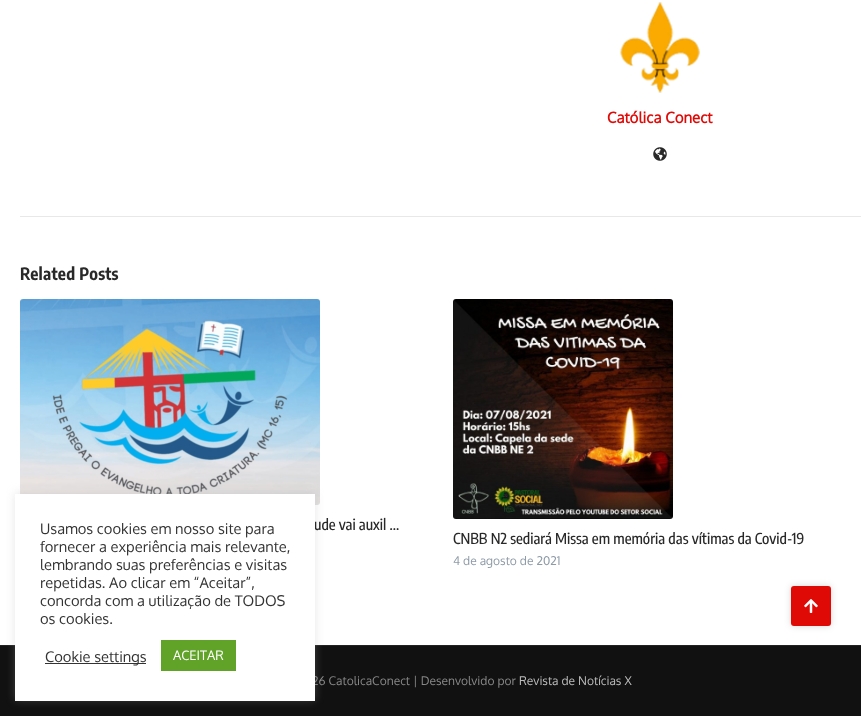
<?xml version="1.0" encoding="UTF-8"?>
<svg xmlns="http://www.w3.org/2000/svg" xmlns:xlink="http://www.w3.org/1999/xlink" width="861" height="716">
  <rect width="100%" height="100%" fill="#ffffff" />
  <rect x="20" y="216" width="841" height="1" fill="#e8e8e8" />
  <image x="620" y="2" width="80" height="91" xlink:href="image1.png" />
  <image x="653" y="147" width="14" height="14" xlink:href="image2.png" />
  <image x="20" y="299" width="300" height="206" xlink:href="image3.png" />
  <image x="453" y="299" width="220" height="220" xlink:href="image4.png" />
  <rect x="791" y="586" width="40" height="40" rx="3" fill="#000000" fill-opacity="0.15" filter="blur(3.5px)" />
  <rect x="791" y="586" width="40" height="40" rx="3" fill="#df0a06" />
  <image x="804" y="599" width="14" height="14" xlink:href="image5.png" />
  <rect y="646" width="861" height="70" fill="#111111" />
  <rect y="645" width="861" height="1" fill="#222222" />
  <rect x="15" y="493" width="300" height="207" fill="#acabab" fill-opacity="0.3" filter="blur(5px)" />
  <text x="607" y="123" style="font-family: Oxygen; font-size: 15px; font-weight: bold; fill: #df0a06">Católica Conect</text>
  <text x="20" y="280" style="font-family: Encode Sans Condensed; font-size: 17px; font-weight: bold; letter-spacing: 0.25px; fill: #292929">Related Posts</text>
  <text x="314" y="530" style="font-family: Encode Sans Condensed; font-size: 15px; font-weight: 500; fill: #292929">ude vai auxil ...</text>
  <text x="453" y="544" style="font-family: Encode Sans Condensed; font-size: 15px; font-weight: 500; fill: #292929">CNBB N2 sediará Missa em memória das vítimas da Covid-19</text>
  <text x="453" y="565" style="font-family: Oxygen; font-size: 12px; fill: #8e9ba7">4 de agosto de 2021</text>
  <text x="312" y="685" style="font-family: Oxygen; font-size: 12px; fill: #888888">26 CatolicaConect | Desenvolvido por</text>
  <text x="519" y="685" style="font-family: Oxygen; font-size: 12px; fill: #bcbcbc">Revista de Notícias X</text>
  <rect x="15" y="494" width="300" height="207" fill="#ffffff" />
  <text x="40" y="534" style="font-family: Oxygen; font-size: 14.7px; fill: #333333">Usamos cookies em nosso site para</text>
  <text x="40" y="552" style="font-family: Oxygen; font-size: 14.7px; fill: #333333">fornecer a experiência mais relevante,</text>
  <text x="40" y="570" style="font-family: Oxygen; font-size: 14.7px; fill: #333333">lembrando suas preferências e visitas</text>
  <text x="40" y="588" style="font-family: Oxygen; font-size: 14.7px; fill: #333333">repetidas. Ao clicar em “Aceitar”,</text>
  <text x="40" y="606" style="font-family: Oxygen; font-size: 14.7px; fill: #333333">concorda com a utilização de TODOS</text>
  <text x="40" y="624" style="font-family: Oxygen; font-size: 14.7px; fill: #333333">os cookies.</text>
  <rect x="45" y="663" width="101" height="1" fill="#333333" />
  <text x="45" y="662" style="font-family: Oxygen; font-size: 14.7px; fill: #333333">Cookie settings</text>
  <rect x="161" y="640" width="75" height="31" fill="#61a229" />
  <text x="173" y="660" style="font-family: Oxygen; font-size: 13px; fill: #ffffff">ACEITAR</text>
</svg>
